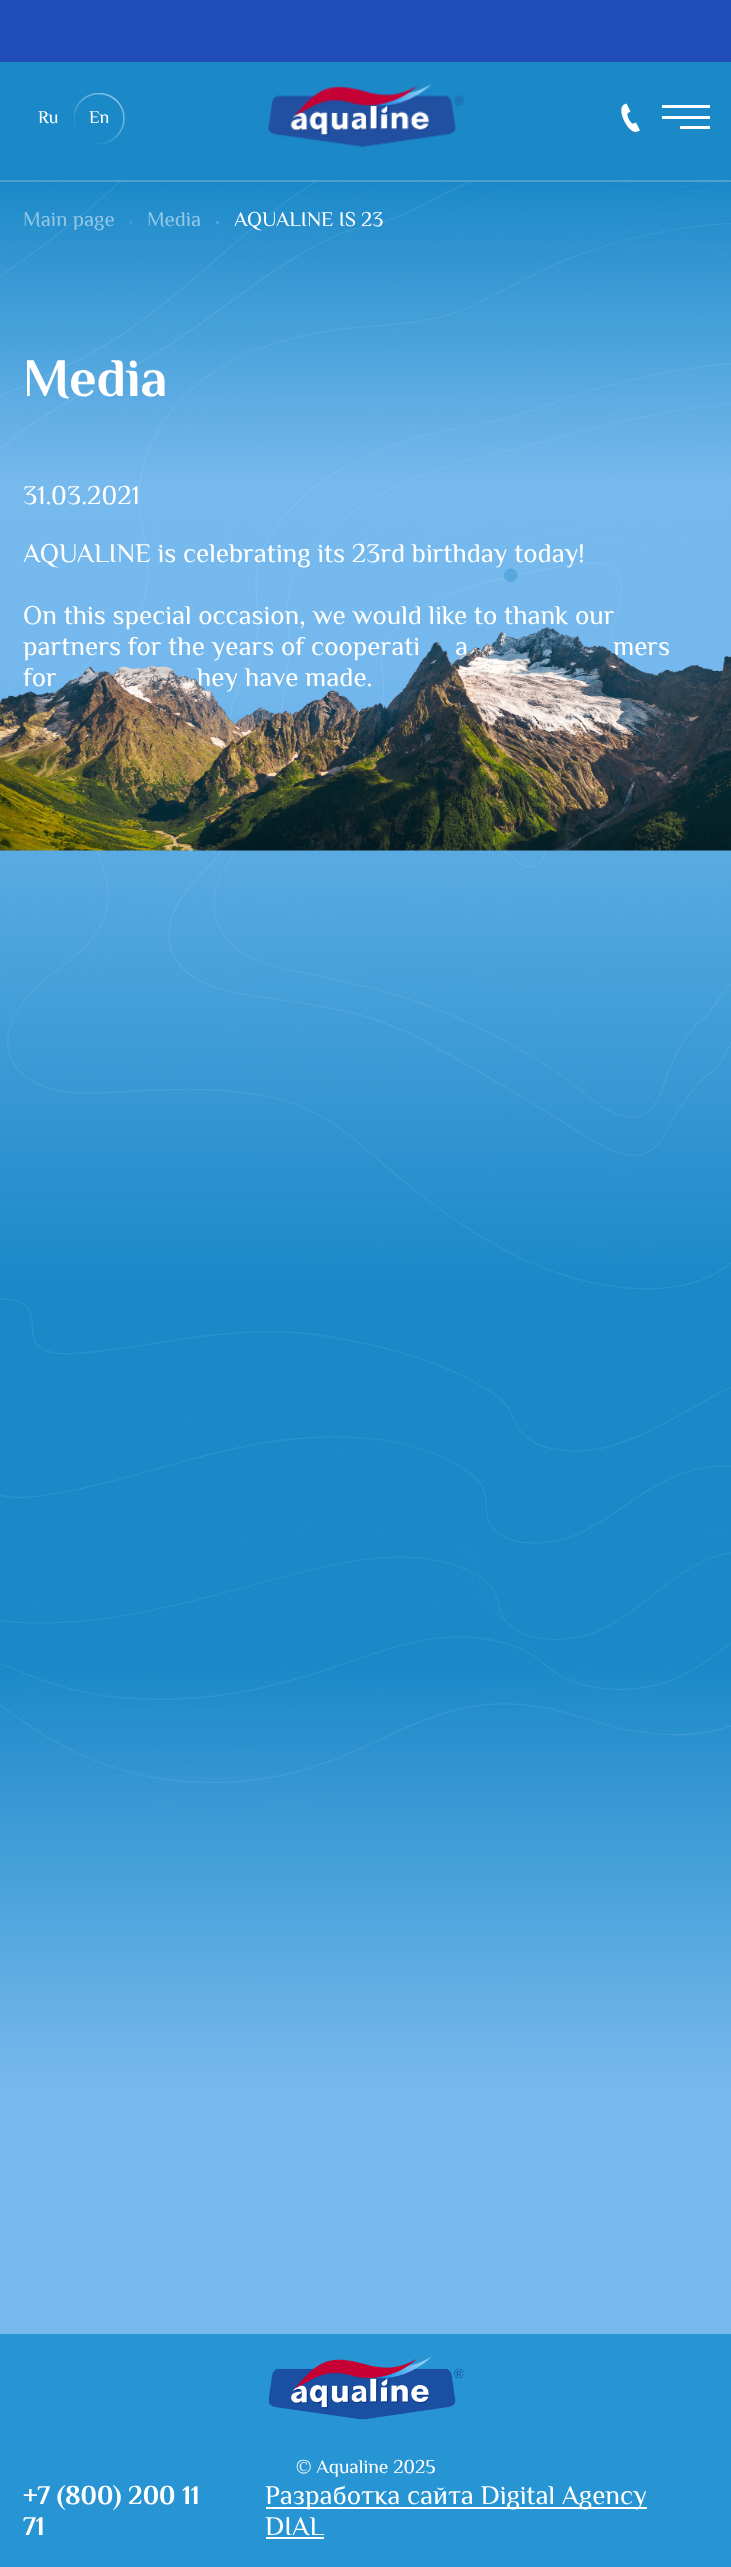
<?xml version="1.0" encoding="UTF-8"?>
<svg xmlns="http://www.w3.org/2000/svg" xmlns:xlink="http://www.w3.org/1999/xlink" width="731" height="2567">
  <defs>
    <linearGradient id="g1" gradientUnits="userSpaceOnUse" x1="366" y1="182" x2="366" y2="2334"><stop offset="0" stop-color="#1b89c8" /><stop offset="0.14" stop-color="#76b9ed" /><stop offset="0.23" stop-color="#74b8ed" /><stop offset="0.51" stop-color="#1b89c8" /><stop offset="0.69" stop-color="#1b89c8" /><stop offset="0.89" stop-color="#79baee" /></linearGradient>
    <clipPath id="clip1"><rect x="74" y="93" width="51" height="51" /></clipPath>
    <linearGradient id="g2" gradientUnits="userSpaceOnUse" x1="145" y1="59" x2="85" y2="138"><stop offset="0" stop-color="#ffffff" /><stop offset="1" stop-color="#1b89c8" /></linearGradient>
  </defs>
  <rect width="100%" height="100%" fill="#1b89c8" />
  <rect width="731" height="62" fill="#1f4cb7" />
  <rect y="190" width="731" height="2144" fill="url(#g1)" />
  <image x="0" y="181" width="731" height="1630" xlink:href="image2.png" />
  <rect y="180" width="731" height="2" fill="#ffffff" fill-opacity="0.2" />
  <g clip-path="url(#clip1)">
    <circle cx="99" cy="118.5" r="25" fill="none" stroke="url(#g2)" stroke-width="1.5" />
  </g>
  <image x="268" y="84" width="196" height="63" xlink:href="image1.png" />
  <path d="M 640 130.5 l -4 -8 l -2.5 1 c -2.5 1.5 -8 -9.5 -5.5 -10.5 l 2.5 -1.5 l -4 -8 l -2.5 1 c -8.5 4.5 5 31 13.5 27 z" fill="#ffffff" />
  <rect x="662" y="116" width="48" height="3" fill="#ffffff" />
  <rect x="662" y="105" width="48" height="3" fill="#ffffff" />
  <rect x="680" y="126" width="30" height="3" fill="#ffffff" />
  <circle cx="130.5" cy="222.5" r="1.5" fill="#3d9ed3" />
  <circle cx="217.5" cy="222.5" r="1.5" fill="#53add9" />
  <rect y="2334" width="731" height="233" fill="#2794d3" />
  <image x="269" y="2357" width="195" height="63" xlink:href="image4.png" />
  <rect x="266" y="2507" width="381" height="2" fill="#ffffff" />
  <rect x="266" y="2537" width="58" height="2" fill="#ffffff" />
  <text x="38" y="123" style="font-family: El Messiri; font-size: 18px; fill: #ffffff">Ru</text>
  <text x="89" y="123" style="font-family: El Messiri; font-size: 18px; fill: #ffffff">En</text>
  <text x="23" y="226" style="font-family: El Messiri; font-size: 21px; fill: #93c7e6">Main page</text>
  <text x="147" y="226" style="font-family: El Messiri; font-size: 21px; fill: #93c7e6">Media</text>
  <text x="234" y="226" style="font-family: El Messiri; font-size: 21px; fill: #ffffff">AQUALINE IS 23</text>
  <text x="23" y="396" style="font-family: El Messiri; font-size: 54px; font-weight: bold; fill: #ffffff">Media</text>
  <text x="23" y="504" style="font-family: El Messiri; font-size: 27px; fill: #ffffff">31.03.2021</text>
  <text x="23" y="562" style="font-family: El Messiri; font-size: 27px; fill: #ffffff">AQUALINE is celebrating its 23rd birthday today!</text>
  <text x="23" y="624" style="font-family: El Messiri; font-size: 27px; fill: #ffffff">On this special occasion, we would like to thank our</text>
  <text x="23" y="655" style="font-family: El Messiri; font-size: 27px; fill: #ffffff">partners for the years of cooperati</text>
  <text x="455" y="655" style="font-family: El Messiri; font-size: 27px; fill: #ffffff">a</text>
  <text x="613" y="655" style="font-family: El Messiri; font-size: 27px; fill: #ffffff">mers</text>
  <text x="23" y="686" style="font-family: El Messiri; font-size: 27px; fill: #ffffff">for</text>
  <text x="197" y="686" style="font-family: El Messiri; font-size: 27px; fill: #ffffff">hey have made.</text>
  <image x="0" y="627" width="731" height="224" xlink:href="image3.png" />
  <text x="296" y="2473" style="font-family: El Messiri; font-size: 19.5px; fill: #ffffff">© Aqualine 2025</text>
  <text x="23" y="2504" style="font-family: El Messiri; font-size: 27px; font-weight: bold; fill: #ffffff">+7 (800) 200 11</text>
  <text x="23" y="2535" style="font-family: El Messiri; font-size: 27px; font-weight: bold; fill: #ffffff">71</text>
  <text x="265" y="2504" style="font-family: El Messiri; font-size: 27px; fill: #ffffff">Разработка сайта Digital Agency</text>
  <text x="265" y="2535" style="font-family: El Messiri; font-size: 27px; fill: #ffffff">DIAL</text>
</svg>
